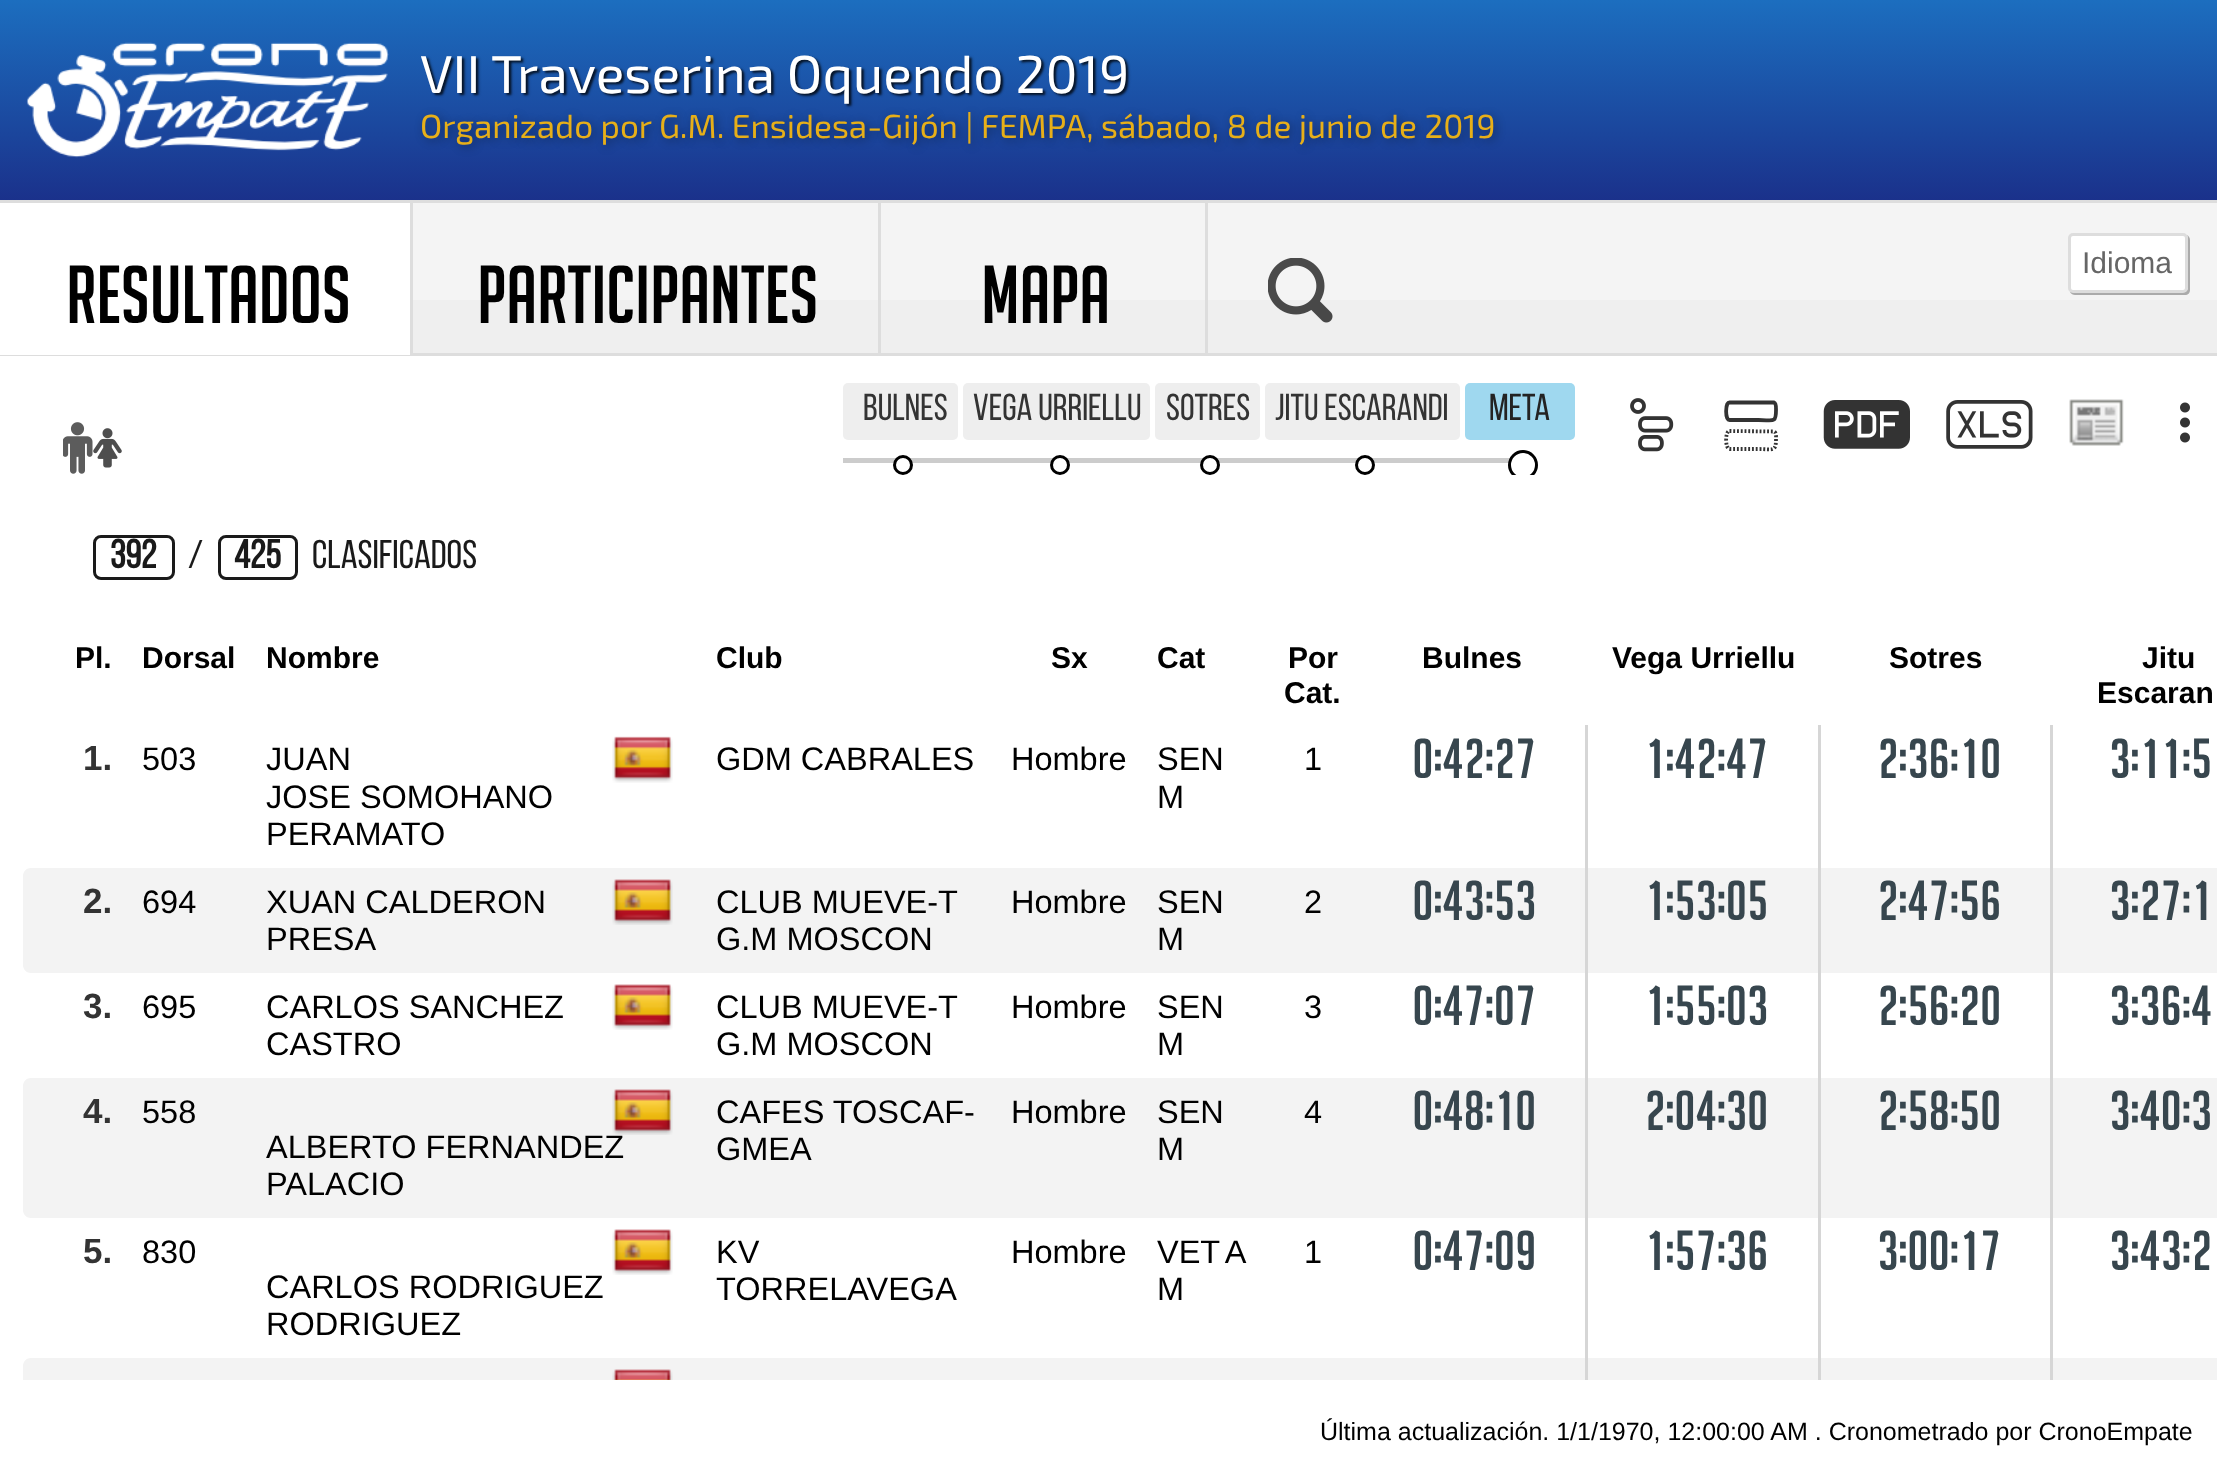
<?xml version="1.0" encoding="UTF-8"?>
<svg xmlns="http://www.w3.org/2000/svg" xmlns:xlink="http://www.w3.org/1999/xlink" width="2217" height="1458">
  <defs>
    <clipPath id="clip1"><rect x="838" y="380" width="742" height="95" /></clipPath>
  </defs>
  <rect width="100%" height="100%" fill="#ffffff" />
  <image x="0" y="0" width="2217" height="200" xlink:href="image1.png" />
  <rect y="200" width="2217" height="3" fill="#dddddd" />
  <rect x="413" y="300" width="1804" height="53" fill="#efefef" />
  <rect x="413" y="203" width="1804" height="97" fill="#f4f4f4" />
  <rect y="353" width="2217" height="3" fill="#dddddd" />
  <rect y="353" width="410" height="2" fill="#ffffff" />
  <rect x="410" y="203" width="3" height="152" fill="#dddddd" />
  <rect x="878" y="203" width="3" height="152" fill="#dddddd" />
  <rect x="1205" y="203" width="3" height="152" fill="#dddddd" />
  <image x="1268" y="258" width="65" height="65" xlink:href="image2.png" />
  <path d="M 2070 292 c 1 2 3 3 5 3 h 110 c 3 0 5 -2 5 -5 v -50 c 0 -2 -1 -4 -3 -5 l 1 3 v 50 c 0 2 -3 4 -6 4 h -110 z" fill="#ababab" />
  <rect x="2069.5" y="234.5" width="117" height="57" rx="3.5" fill="#ffffff" stroke="#dddddd" stroke-width="3" />
  <image x="63" y="422" width="30" height="52" xlink:href="image3.png" />
  <image x="93" y="428" width="29" height="40" xlink:href="image4.png" />
  <rect x="843" y="383" width="115" height="57" rx="5" fill="#eeeeee" />
  <rect x="843" y="458" width="672" height="5" fill="#cccccc" />
  <circle cx="903" cy="465" r="8.5" fill="#ffffff" stroke="#000000" stroke-width="3" />
  <rect x="963" y="383" width="187" height="57" rx="5" fill="#eeeeee" />
  <circle cx="1060" cy="465" r="8.5" fill="#ffffff" stroke="#000000" stroke-width="3" />
  <rect x="1155" y="383" width="105" height="57" rx="5" fill="#eeeeee" />
  <circle cx="1210" cy="465" r="8.5" fill="#ffffff" stroke="#000000" stroke-width="3" />
  <rect x="1265" y="383" width="195" height="57" rx="5" fill="#eeeeee" />
  <circle cx="1365" cy="465" r="8.5" fill="#ffffff" stroke="#000000" stroke-width="3" />
  <rect x="1465" y="383" width="110" height="57" rx="5" fill="#9fd8ef" />
  <g clip-path="url(#clip1)">
    <circle cx="1523" cy="465" r="13.5" fill="#ffffff" stroke="#000000" stroke-width="3" />
  </g>
  <image x="1630" y="398" width="44" height="54" xlink:href="image5.png" />
  <path d="M 1729.5 402.5 h 44.5 c 2.5 1 2 5.5 2 8 c 0 13.5 -3.5 9.5 -17.5 9.5 h -29 c -4.5 0 -4.5 -17.5 0 -17.5 z" fill="none" stroke="#333333" stroke-width="3.8" />
  <path d="M 1729.5 431 l 44.5 0.5 c 2.5 1 2 5.5 2 7.5 c 0 13.5 -3.5 10 -17.5 10 h -29 c -4.5 -0.5 -4.5 -18 0 -18 z" fill="none" stroke="#333333" stroke-width="3.8" stroke-dasharray="1.88 1.88" />
  <image x="1823" y="400" width="87" height="49" xlink:href="image6.png" />
  <image x="1946" y="400" width="87" height="49" xlink:href="image7.png" />
  <image x="2069" y="399" width="55" height="47" xlink:href="image8.png" />
  <image x="2180" y="402" width="10" height="41" xlink:href="image9.png" />
  <rect x="94.5" y="536.5" width="79" height="42" rx="6.5" fill="none" stroke="#1a1a1a" stroke-width="3" />
  <rect x="219.5" y="536.5" width="77" height="42" rx="6.5" fill="none" stroke="#1a1a1a" stroke-width="3" />
  <path d="M 31 1358 h 97 v 22 h -105 v -14 c 0 -4.5 3.5 -8 8 -8 z" fill="#f3f3f3" />
  <rect x="128" y="1358" width="1457" height="22" fill="#f3f3f3" />
  <rect x="1585" y="725" width="3" height="655" fill="#d6d6d6" />
  <rect x="1588" y="1358" width="230" height="22" fill="#f3f3f3" />
  <rect x="1818" y="725" width="3" height="655" fill="#d6d6d6" />
  <rect x="1821" y="1358" width="229" height="22" fill="#f3f3f3" />
  <rect x="2050" y="725" width="3" height="655" fill="#d6d6d6" />
  <rect x="2053" y="1358" width="164" height="22" fill="#f3f3f3" />
  <image x="612" y="1369" width="61" height="11" xlink:href="image10.png" />
  <image x="612" y="736" width="61" height="47" xlink:href="image11.png" />
  <path d="M 31 868 h 97 v 105 h -97 c -4.5 0 -8 -3.5 -8 -8 v -89 c 0 -4.5 3.5 -8 8 -8 z" fill="#f3f3f3" />
  <rect x="128" y="868" width="1457" height="105" fill="#f3f3f3" />
  <image x="612" y="879" width="61" height="46" xlink:href="image12.png" />
  <rect x="1588" y="868" width="230" height="105" fill="#f3f3f3" />
  <rect x="1821" y="868" width="229" height="105" fill="#f3f3f3" />
  <rect x="2053" y="868" width="164" height="105" fill="#f3f3f3" />
  <image x="612" y="984" width="61" height="46" xlink:href="image13.png" />
  <path d="M 31 1078 h 97 v 140 h -97 c -4.5 0 -8 -3.5 -8 -8 v -124 c 0 -4.5 3.5 -8 8 -8 z" fill="#f3f3f3" />
  <rect x="128" y="1078" width="1457" height="140" fill="#f3f3f3" />
  <rect x="1588" y="1078" width="230" height="140" fill="#f3f3f3" />
  <rect x="1821" y="1078" width="229" height="140" fill="#f3f3f3" />
  <rect x="2053" y="1078" width="164" height="140" fill="#f3f3f3" />
  <image x="612" y="1089" width="61" height="46" xlink:href="image12.png" />
  <image x="612" y="1229" width="61" height="46" xlink:href="image13.png" />
  <text x="63" y="323" style="font-family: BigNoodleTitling; font-size: 80px; font-weight: 100; fill: #000000">Resultados</text>
  <text x="474" y="323" style="font-family: BigNoodleTitling; font-size: 80px; font-weight: 100; fill: #000000">Participantes</text>
  <text x="978" y="323" style="font-family: BigNoodleTitling; font-size: 80px; font-weight: 100; fill: #000000">Mapa</text>
  <text x="2082" y="273" style="font-family: Liberation Sans; font-size: 30px; fill: #666666">Idioma</text>
  <text x="863" y="420" style="font-family: Bebas Neue; font-size: 37.5px; fill: #333333">Bulnes</text>
  <text x="973" y="420" style="font-family: Bebas Neue; font-size: 37.5px; fill: #333333">Vega Urriellu</text>
  <text x="1166" y="420" style="font-family: Bebas Neue; font-size: 37.5px; fill: #333333">Sotres</text>
  <text x="1275" y="420" style="font-family: Bebas Neue; font-size: 37.5px; fill: #333333">Jitu Escarandi</text>
  <text x="1489" y="420" style="font-family: Bebas Neue; font-size: 37.5px; fill: #232323">Meta</text>
  <text x="110" y="568" style="font-family: Bebas Neue; font-size: 40px; font-weight: bold; fill: #1a1a1a">392</text>
  <text x="188" y="568" style="font-family: Bebas Neue; font-size: 40px; fill: #1a1a1a">/</text>
  <text x="234" y="568" style="font-family: Bebas Neue; font-size: 40px; font-weight: bold; fill: #1a1a1a">425</text>
  <text x="312" y="568" style="font-family: Bebas Neue; font-size: 40px; fill: #1a1a1a">Clasificados</text>
  <text x="75" y="668" style="font-family: Liberation Sans; font-size: 30px; font-weight: bold; fill: #000000">Pl.</text>
  <text x="142" y="668" style="font-family: Liberation Sans; font-size: 30px; font-weight: bold; fill: #000000">Dorsal</text>
  <text x="266" y="668" style="font-family: Liberation Sans; font-size: 30px; font-weight: bold; fill: #000000">Nombre</text>
  <text x="716" y="668" style="font-family: Liberation Sans; font-size: 30px; font-weight: bold; fill: #000000">Club</text>
  <text x="1051" y="668" style="font-family: Liberation Sans; font-size: 30px; font-weight: bold; fill: #000000">Sx</text>
  <text x="1157" y="668" style="font-family: Liberation Sans; font-size: 30px; font-weight: bold; fill: #000000">Cat</text>
  <text x="1288" y="668" style="font-family: Liberation Sans; font-size: 30px; font-weight: bold; fill: #000000">Por</text>
  <text x="1284" y="703" style="font-family: Liberation Sans; font-size: 30px; font-weight: bold; fill: #000000">Cat.</text>
  <text x="1422" y="668" style="font-family: Liberation Sans; font-size: 30px; font-weight: bold; fill: #000000">Bulnes</text>
  <text x="1612" y="668" style="font-family: Liberation Sans; font-size: 30px; font-weight: bold; fill: #000000">Vega Urriellu</text>
  <text x="1889" y="668" style="font-family: Liberation Sans; font-size: 30px; font-weight: bold; fill: #000000">Sotres</text>
  <text x="2142" y="668" style="font-family: Liberation Sans; font-size: 30px; font-weight: bold; fill: #000000">Jitu</text>
  <text x="2097" y="703" style="font-family: Liberation Sans; font-size: 30px; font-weight: bold; fill: #000000">Escaran</text>
  <text x="83" y="770" style="font-family: Liberation Sans; font-size: 35px; font-weight: bold; fill: #333333">1.</text>
  <text x="142" y="770" style="font-family: Liberation Sans; font-size: 32.5px; fill: #000000">503</text>
  <text x="266" y="770" style="font-family: Liberation Sans; font-size: 32.5px; fill: #000000">JUAN</text>
  <text x="266" y="808" style="font-family: Liberation Sans; font-size: 32.5px; fill: #000000">JOSE SOMOHANO</text>
  <text x="266" y="845" style="font-family: Liberation Sans; font-size: 32.5px; fill: #000000">PERAMATO</text>
  <text x="716" y="770" style="font-family: Liberation Sans; font-size: 32.5px; fill: #000000">GDM CABRALES</text>
  <text x="1011" y="770" style="font-family: Liberation Sans; font-size: 32.5px; fill: #000000">Hombre</text>
  <text x="1157" y="770" style="font-family: Liberation Sans; font-size: 32.5px; fill: #000000">SEN</text>
  <text x="1157" y="808" style="font-family: Liberation Sans; font-size: 32.5px; fill: #000000">M</text>
  <text x="1304" y="770" style="font-family: Liberation Sans; font-size: 32.5px; fill: #000000">1</text>
  <text x="1409" y="778" style="font-family: BigNoodleTitling; font-size: 55px; font-weight: 100; fill: #37464e">0:42:27</text>
  <text x="1641" y="778" style="font-family: BigNoodleTitling; font-size: 55px; font-weight: 100; fill: #37464e">1:42:47</text>
  <text x="1874" y="778" style="font-family: BigNoodleTitling; font-size: 55px; font-weight: 100; fill: #37464e">2:36:10</text>
  <text x="2106" y="778" style="font-family: BigNoodleTitling; font-size: 55px; font-weight: 100; fill: #37464e">3:11:5</text>
  <text x="83" y="913" style="font-family: Liberation Sans; font-size: 35px; font-weight: bold; fill: #333333">2.</text>
  <text x="142" y="913" style="font-family: Liberation Sans; font-size: 32.5px; fill: #000000">694</text>
  <text x="266" y="913" style="font-family: Liberation Sans; font-size: 32.5px; fill: #000000">XUAN CALDERON</text>
  <text x="266" y="950" style="font-family: Liberation Sans; font-size: 32.5px; fill: #000000">PRESA</text>
  <text x="716" y="913" style="font-family: Liberation Sans; font-size: 32.5px; fill: #000000">CLUB MUEVE-T</text>
  <text x="716" y="950" style="font-family: Liberation Sans; font-size: 32.5px; fill: #000000">G.M MOSCON</text>
  <text x="1011" y="913" style="font-family: Liberation Sans; font-size: 32.5px; fill: #000000">Hombre</text>
  <text x="1157" y="913" style="font-family: Liberation Sans; font-size: 32.5px; fill: #000000">SEN</text>
  <text x="1157" y="950" style="font-family: Liberation Sans; font-size: 32.5px; fill: #000000">M</text>
  <text x="1304" y="913" style="font-family: Liberation Sans; font-size: 32.5px; fill: #000000">2</text>
  <text x="1409" y="920" style="font-family: BigNoodleTitling; font-size: 55px; font-weight: 100; fill: #37464e">0:43:53</text>
  <text x="1641" y="920" style="font-family: BigNoodleTitling; font-size: 55px; font-weight: 100; fill: #37464e">1:53:05</text>
  <text x="1874" y="920" style="font-family: BigNoodleTitling; font-size: 55px; font-weight: 100; fill: #37464e">2:47:56</text>
  <text x="2106" y="920" style="font-family: BigNoodleTitling; font-size: 55px; font-weight: 100; fill: #37464e">3:27:1</text>
  <text x="83" y="1018" style="font-family: Liberation Sans; font-size: 35px; font-weight: bold; fill: #333333">3.</text>
  <text x="142" y="1018" style="font-family: Liberation Sans; font-size: 32.5px; fill: #000000">695</text>
  <text x="266" y="1018" style="font-family: Liberation Sans; font-size: 32.5px; fill: #000000">CARLOS SANCHEZ</text>
  <text x="266" y="1055" style="font-family: Liberation Sans; font-size: 32.5px; fill: #000000">CASTRO</text>
  <text x="716" y="1018" style="font-family: Liberation Sans; font-size: 32.5px; fill: #000000">CLUB MUEVE-T</text>
  <text x="716" y="1055" style="font-family: Liberation Sans; font-size: 32.5px; fill: #000000">G.M MOSCON</text>
  <text x="1011" y="1018" style="font-family: Liberation Sans; font-size: 32.5px; fill: #000000">Hombre</text>
  <text x="1157" y="1018" style="font-family: Liberation Sans; font-size: 32.5px; fill: #000000">SEN</text>
  <text x="1157" y="1055" style="font-family: Liberation Sans; font-size: 32.5px; fill: #000000">M</text>
  <text x="1304" y="1018" style="font-family: Liberation Sans; font-size: 32.5px; fill: #000000">3</text>
  <text x="1409" y="1025" style="font-family: BigNoodleTitling; font-size: 55px; font-weight: 100; fill: #37464e">0:47:07</text>
  <text x="1641" y="1025" style="font-family: BigNoodleTitling; font-size: 55px; font-weight: 100; fill: #37464e">1:55:03</text>
  <text x="1874" y="1025" style="font-family: BigNoodleTitling; font-size: 55px; font-weight: 100; fill: #37464e">2:56:20</text>
  <text x="2106" y="1025" style="font-family: BigNoodleTitling; font-size: 55px; font-weight: 100; fill: #37464e">3:36:4</text>
  <text x="83" y="1123" style="font-family: Liberation Sans; font-size: 35px; font-weight: bold; fill: #333333">4.</text>
  <text x="142" y="1123" style="font-family: Liberation Sans; font-size: 32.5px; fill: #000000">558</text>
  <text x="716" y="1123" style="font-family: Liberation Sans; font-size: 32.5px; fill: #000000">CAFES TOSCAF-</text>
  <text x="716" y="1160" style="font-family: Liberation Sans; font-size: 32.5px; fill: #000000">GMEA</text>
  <text x="1011" y="1123" style="font-family: Liberation Sans; font-size: 32.5px; fill: #000000">Hombre</text>
  <text x="1157" y="1123" style="font-family: Liberation Sans; font-size: 32.5px; fill: #000000">SEN</text>
  <text x="1157" y="1160" style="font-family: Liberation Sans; font-size: 32.5px; fill: #000000">M</text>
  <text x="1304" y="1123" style="font-family: Liberation Sans; font-size: 32.5px; fill: #000000">4</text>
  <text x="1409" y="1130" style="font-family: BigNoodleTitling; font-size: 55px; font-weight: 100; fill: #37464e">0:48:10</text>
  <text x="1641" y="1130" style="font-family: BigNoodleTitling; font-size: 55px; font-weight: 100; fill: #37464e">2:04:30</text>
  <text x="1874" y="1130" style="font-family: BigNoodleTitling; font-size: 55px; font-weight: 100; fill: #37464e">2:58:50</text>
  <text x="2106" y="1130" style="font-family: BigNoodleTitling; font-size: 55px; font-weight: 100; fill: #37464e">3:40:3</text>
  <text x="266" y="1158" style="font-family: Liberation Sans; font-size: 32.5px; fill: #000000">ALBERTO FERNANDEZ</text>
  <text x="266" y="1195" style="font-family: Liberation Sans; font-size: 32.5px; fill: #000000">PALACIO</text>
  <text x="83" y="1263" style="font-family: Liberation Sans; font-size: 35px; font-weight: bold; fill: #333333">5.</text>
  <text x="142" y="1263" style="font-family: Liberation Sans; font-size: 32.5px; fill: #000000">830</text>
  <text x="716" y="1263" style="font-family: Liberation Sans; font-size: 32.5px; fill: #000000">KV</text>
  <text x="716" y="1300" style="font-family: Liberation Sans; font-size: 32.5px; fill: #000000">TORRELAVEGA</text>
  <text x="1011" y="1263" style="font-family: Liberation Sans; font-size: 32.5px; fill: #000000">Hombre</text>
  <text x="1157" y="1263" word-spacing="-2" style="font-family: Liberation Sans; font-size: 32.5px; fill: #000000">VET A</text>
  <text x="1157" y="1300" style="font-family: Liberation Sans; font-size: 32.5px; fill: #000000">M</text>
  <text x="1304" y="1263" style="font-family: Liberation Sans; font-size: 32.5px; fill: #000000">1</text>
  <text x="1409" y="1270" style="font-family: BigNoodleTitling; font-size: 55px; font-weight: 100; fill: #37464e">0:47:09</text>
  <text x="1641" y="1270" style="font-family: BigNoodleTitling; font-size: 55px; font-weight: 100; fill: #37464e">1:57:36</text>
  <text x="1874" y="1270" style="font-family: BigNoodleTitling; font-size: 55px; font-weight: 100; fill: #37464e">3:00:17</text>
  <text x="2106" y="1270" style="font-family: BigNoodleTitling; font-size: 55px; font-weight: 100; fill: #37464e">3:43:2</text>
  <text x="266" y="1298" style="font-family: Liberation Sans; font-size: 32.5px; fill: #000000">CARLOS RODRIGUEZ</text>
  <text x="266" y="1335" style="font-family: Liberation Sans; font-size: 32.5px; fill: #000000">RODRIGUEZ</text>
  <text x="1320" y="1440" style="font-family: Liberation Sans; font-size: 25px; fill: #000000">Última actualización. 1/1/1970, 12:00:00 AM . Cronometrado por CronoEmpate</text>
</svg>
